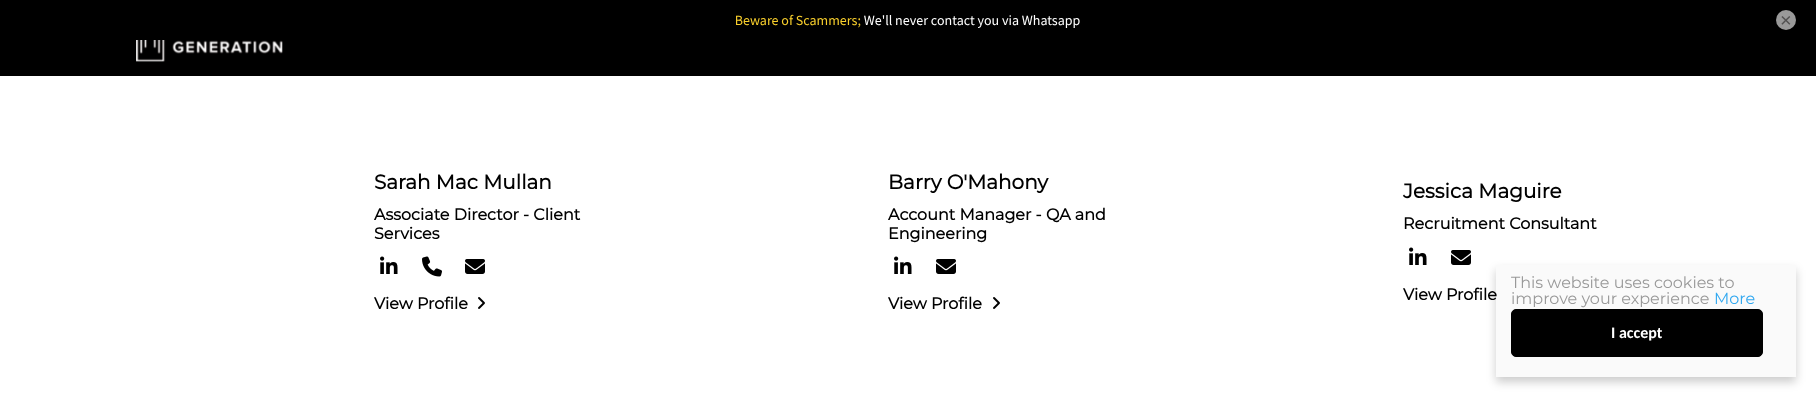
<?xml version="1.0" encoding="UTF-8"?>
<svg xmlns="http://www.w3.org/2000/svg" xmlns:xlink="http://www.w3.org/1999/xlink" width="1816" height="397">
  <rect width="100%" height="100%" fill="#ffffff" />
  <rect width="1816" height="76" fill="#000000" />
  <image x="136" y="14" width="1526" height="26" xlink:href="image1.png" />
  <circle cx="1786" cy="20" r="10" fill="#999999" />
  <image x="136" y="40" width="147" height="22" xlink:href="image2.png" />
  <image x="380" y="256" width="18" height="18" xlink:href="image3.png" />
  <image x="422" y="256" width="20" height="21" xlink:href="image4.png" />
  <image x="465" y="259" width="20" height="15" xlink:href="image5.png" />
  <image x="478" y="297" width="7" height="12" xlink:href="image6.png" />
  <image x="894" y="256" width="18" height="18" xlink:href="image3.png" />
  <image x="936" y="259" width="20" height="15" xlink:href="image5.png" />
  <image x="993" y="297" width="7" height="12" xlink:href="image6.png" />
  <image x="1409" y="247" width="18" height="18" xlink:href="image3.png" />
  <image x="1451" y="250" width="20" height="15" xlink:href="image5.png" />
  <rect x="1496" y="270" width="300" height="112" fill="#000000" fill-opacity="0.2" filter="blur(5px)" />
  <rect x="1496" y="265" width="300" height="112" fill="#fafafa" />
  <rect x="1511.5" y="309.5" width="251" height="47" rx="4.5" fill="#000000" stroke="#000000" />
  <text x="1780" y="27" style="font-family: Liberation Sans; font-size: 20px; fill: #525151">×</text>
  <text x="374" y="189" style="font-family: Montserrat; font-size: 20px; font-weight: bold; fill: #000000">Sarah Mac Mullan</text>
  <text x="374" y="220" style="font-family: Montserrat; font-size: 16px; font-weight: bold; fill: #000000">Associate Director - Client</text>
  <text x="374" y="239" style="font-family: Montserrat; font-size: 16px; font-weight: bold; fill: #000000">Services</text>
  <text x="374" y="309" style="font-family: Montserrat; font-size: 16px; font-weight: bold; fill: #000000">View Profile</text>
  <text x="888" y="189" style="font-family: Montserrat; font-size: 20px; font-weight: bold; fill: #000000">Barry O'Mahony</text>
  <text x="888" y="220" style="font-family: Montserrat; font-size: 16px; font-weight: bold; fill: #000000">Account Manager - QA and</text>
  <text x="888" y="239" style="font-family: Montserrat; font-size: 16px; font-weight: bold; fill: #000000">Engineering</text>
  <text x="888" y="309" style="font-family: Montserrat; font-size: 16px; font-weight: bold; fill: #000000">View Profile</text>
  <text x="1403" y="198" style="font-family: Montserrat; font-size: 20px; font-weight: bold; fill: #000000">Jessica Maguire</text>
  <text x="1403" y="229" style="font-family: Montserrat; font-size: 16px; font-weight: bold; fill: #000000">Recruitment Consultant</text>
  <text x="1403" y="300" style="font-family: Montserrat; font-size: 16px; font-weight: bold; fill: #000000">View Profile</text>
  <text x="1511" y="288" style="font-family: Montserrat; font-size: 16px; font-weight: 100; fill: #999999">This website uses cookies to</text>
  <text x="1511" y="304" style="font-family: Montserrat; font-size: 16px; font-weight: 100; fill: #999999">improve your experience</text>
  <text x="1714" y="304" style="font-family: Montserrat; font-size: 16px; font-weight: 100; fill: #31a8f0">More</text>
  <text x="1611" y="338" style="font-family: Carlito; font-size: 16px; font-weight: bold; fill: #ffffff">I accept</text>
</svg>
